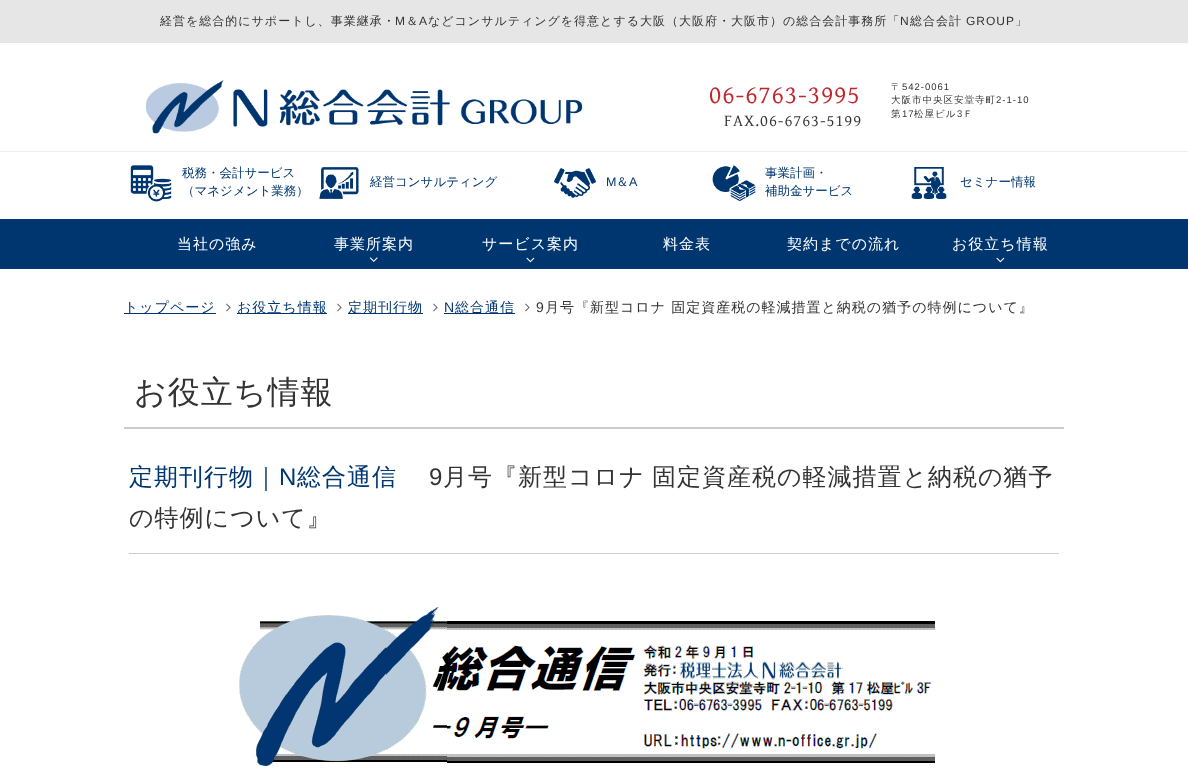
<?xml version="1.0" encoding="UTF-8"?>
<svg xmlns="http://www.w3.org/2000/svg" xmlns:xlink="http://www.w3.org/1999/xlink" width="1188" height="769">
  <rect width="100%" height="100%" fill="#ffffff" />
  <rect width="1188" height="43" fill="#e6e6e6" />
  <image x="145" y="80" width="438" height="54" xlink:href="image1.png" />
  <rect y="151" width="1188" height="1" fill="#eeeeee" />
  <image x="130" y="165" width="42" height="37" xlink:href="image2.png" />
  <image x="319" y="167" width="40" height="32" xlink:href="image3.png" />
  <image x="554" y="168" width="42" height="30" xlink:href="image4.png" />
  <image x="712" y="165" width="44" height="37" xlink:href="image5.png" />
  <image x="911" y="167" width="36" height="32" xlink:href="image6.png" />
  <rect y="219" width="1188" height="50" fill="#003670" />
  <image x="369" y="257" width="9" height="5" xlink:href="image7.png" />
  <image x="526" y="257" width="9" height="6" xlink:href="image8.png" />
  <image x="996" y="257" width="9" height="6" xlink:href="image9.png" />
  <rect x="124" y="313" width="92" height="1" fill="#003670" />
  <image x="226" y="303" width="5" height="9" xlink:href="image10.png" />
  <rect x="237" y="313" width="90" height="1" fill="#003670" />
  <image x="337" y="303" width="5" height="9" xlink:href="image10.png" />
  <rect x="348" y="313" width="75" height="1" fill="#003670" />
  <image x="433" y="303" width="5" height="9" xlink:href="image10.png" />
  <rect x="444" y="313" width="71" height="1" fill="#003670" />
  <image x="525" y="303" width="5" height="9" xlink:href="image10.png" />
  <rect x="124" y="427" width="940" height="2" fill="#cccccc" />
  <rect x="129" y="553" width="930" height="1" fill="#cccccc" />
  <image x="239" y="607" width="696" height="160" xlink:href="image11.png" />
  <text x="160" y="25" style="font-family: WenQuanYi Zen Hei; font-size: 12px; font-weight: 500; letter-spacing: 1px; fill: #333333">経営を総合的にサポートし、事業継承・</text>
  <text x="395" y="25" style="font-family: Liberation Sans; font-size: 12px; letter-spacing: 1px; fill: #333333">M</text>
  <text x="406" y="25" style="font-family: WenQuanYi Zen Hei; font-size: 12px; font-weight: 500; letter-spacing: 1px; fill: #333333">＆</text>
  <text x="419" y="25" style="font-family: Liberation Sans; font-size: 12px; letter-spacing: 1px; fill: #333333">A</text>
  <text x="428" y="25" style="font-family: WenQuanYi Zen Hei; font-size: 12px; font-weight: 500; letter-spacing: 1px; fill: #333333">などコンサルティングを得意とする大阪（大阪府・大阪市）の総合会計事務所「</text>
  <text x="900" y="25" style="font-family: Liberation Sans; font-size: 12px; letter-spacing: 1px; fill: #333333">N</text>
  <text x="910" y="25" style="font-family: WenQuanYi Zen Hei; font-size: 12px; font-weight: 500; letter-spacing: 1px; fill: #333333">総合会計</text>
  <text x="966" y="25" style="font-family: Liberation Sans; font-size: 12px; letter-spacing: 1px; fill: #333333">GROUP</text>
  <text x="1015" y="25" style="font-family: WenQuanYi Zen Hei; font-size: 12px; font-weight: 500; letter-spacing: 1px; fill: #333333">」</text>
  <text x="709" y="103" style="font-family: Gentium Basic; font-size: 26px; letter-spacing: 1px; fill: #c1272d">06-6763-3995</text>
  <text x="724" y="126" style="font-family: Gentium Basic; font-size: 16.75px; letter-spacing: 1px; fill: #333333">FAX.06-6763-5199</text>
  <text x="891" y="90" style="font-family: WenQuanYi Zen Hei; font-size: 9.5px; font-weight: 500; letter-spacing: 1px; fill: #333333">〒</text>
  <text x="902" y="90" style="font-family: Liberation Sans; font-size: 9.5px; letter-spacing: 1px; fill: #333333">542-0061</text>
  <text x="891" y="103" style="font-family: WenQuanYi Zen Hei; font-size: 9.5px; font-weight: 500; letter-spacing: 1px; fill: #333333">大阪市中央区安堂寺町</text>
  <text x="996" y="103" style="font-family: Liberation Sans; font-size: 9.5px; letter-spacing: 1px; fill: #333333">2-1-10</text>
  <text x="891" y="117" style="font-family: WenQuanYi Zen Hei; font-size: 9.5px; font-weight: 500; letter-spacing: 1px; fill: #333333">第</text>
  <text x="902" y="117" style="font-family: Liberation Sans; font-size: 9.5px; letter-spacing: 1px; fill: #333333">17</text>
  <text x="914" y="117" style="font-family: WenQuanYi Zen Hei; font-size: 9.5px; font-weight: 500; letter-spacing: 1px; fill: #333333">松屋ビル</text>
  <text x="957" y="117" style="font-family: Liberation Sans; font-size: 9.5px; letter-spacing: 1px; fill: #333333">3</text>
  <text x="963" y="117" style="font-family: WenQuanYi Zen Hei; font-size: 9.5px; font-weight: 500; letter-spacing: 1px; fill: #333333">Ｆ</text>
  <text x="182" y="177" style="font-family: WenQuanYi Zen Hei; font-size: 12.5px; font-weight: 500; fill: #003670">税務・会計サービス</text>
  <text x="182" y="195" style="font-family: WenQuanYi Zen Hei; font-size: 12.5px; font-weight: 500; fill: #003670">（マネジメント業務）</text>
  <text x="370" y="186" style="font-family: WenQuanYi Zen Hei; font-size: 12.5px; font-weight: 500; fill: #003670">経営コンサルティング</text>
  <text x="606" y="186" style="font-family: Liberation Sans; font-size: 12.5px; fill: #003670">M</text>
  <text x="616" y="186" style="font-family: WenQuanYi Zen Hei; font-size: 12.5px; font-weight: 500; fill: #003670">＆</text>
  <text x="629" y="186" style="font-family: Liberation Sans; font-size: 12.5px; fill: #003670">A</text>
  <text x="765" y="177" style="font-family: WenQuanYi Zen Hei; font-size: 12.5px; font-weight: 500; fill: #003670">事業計画・</text>
  <text x="765" y="195" style="font-family: WenQuanYi Zen Hei; font-size: 12.5px; font-weight: 500; fill: #003670">補助金サービス</text>
  <text x="960" y="186" style="font-family: WenQuanYi Zen Hei; font-size: 12.5px; font-weight: 500; fill: #003670">セミナー情報</text>
  <text x="177" y="249" style="font-family: WenQuanYi Zen Hei; font-size: 15px; font-weight: 500; letter-spacing: 1px; fill: #ffffff">当社の強み</text>
  <text x="334" y="249" style="font-family: WenQuanYi Zen Hei; font-size: 15px; font-weight: 500; letter-spacing: 1px; fill: #ffffff">事業所案内</text>
  <text x="482" y="249" style="font-family: WenQuanYi Zen Hei; font-size: 15px; font-weight: 500; letter-spacing: 1px; fill: #ffffff">サービス案内</text>
  <text x="663" y="249" style="font-family: WenQuanYi Zen Hei; font-size: 15px; font-weight: 500; letter-spacing: 1px; fill: #ffffff">料金表</text>
  <text x="787" y="249" style="font-family: WenQuanYi Zen Hei; font-size: 15px; font-weight: 500; letter-spacing: 1px; fill: #ffffff">契約までの流れ</text>
  <text x="952" y="249" style="font-family: WenQuanYi Zen Hei; font-size: 15px; font-weight: 500; letter-spacing: 1px; fill: #ffffff">お役立ち情報</text>
  <text x="124" y="312" style="font-family: WenQuanYi Zen Hei; font-size: 14px; font-weight: 500; letter-spacing: 1px; fill: #003670">トップページ</text>
  <text x="237" y="312" style="font-family: WenQuanYi Zen Hei; font-size: 14px; font-weight: 500; letter-spacing: 1px; fill: #003670">お役立ち情報</text>
  <text x="348" y="312" style="font-family: WenQuanYi Zen Hei; font-size: 14px; font-weight: 500; letter-spacing: 1px; fill: #003670">定期刊行物</text>
  <text x="444" y="312" style="font-family: Liberation Sans; font-size: 14px; letter-spacing: 1px; fill: #003670">N</text>
  <text x="455" y="312" style="font-family: WenQuanYi Zen Hei; font-size: 14px; font-weight: 500; letter-spacing: 1px; fill: #003670">総合通信</text>
  <text x="536" y="312" style="font-family: Liberation Sans; font-size: 14px; letter-spacing: 1px; fill: #333333">9</text>
  <text x="545" y="312" style="font-family: WenQuanYi Zen Hei; font-size: 14px; font-weight: 500; letter-spacing: 1px; fill: #333333">月号『新型コロナ 固定資産税の軽減措置と納税の猶予の特例について』</text>
  <text x="134" y="403" style="font-family: WenQuanYi Zen Hei; font-size: 32px; font-weight: 500; letter-spacing: 1px; fill: #333333">お役立ち情報</text>
  <text x="129" y="485" style="font-family: WenQuanYi Zen Hei; font-size: 24px; font-weight: 500; letter-spacing: 1px; fill: #003670">定期刊行物｜</text>
  <text x="279" y="485" style="font-family: Liberation Sans; font-size: 24px; letter-spacing: 1px; fill: #003670">N</text>
  <text x="297" y="485" style="font-family: WenQuanYi Zen Hei; font-size: 24px; font-weight: 500; letter-spacing: 1px; fill: #003670">総合通信</text>
  <text x="429" y="485" style="font-family: Liberation Sans; font-size: 24px; letter-spacing: 1px; fill: #333333">9</text>
  <text x="443" y="485" word-spacing="-1" style="font-family: WenQuanYi Zen Hei; font-size: 24px; font-weight: 500; letter-spacing: 1px; fill: #333333">月号『新型コロナ 固定資産税の軽減措置と納税の猶予</text>
  <text x="129" y="526" style="font-family: WenQuanYi Zen Hei; font-size: 24px; font-weight: 500; letter-spacing: 1px; fill: #333333">の特例について』</text>
</svg>
